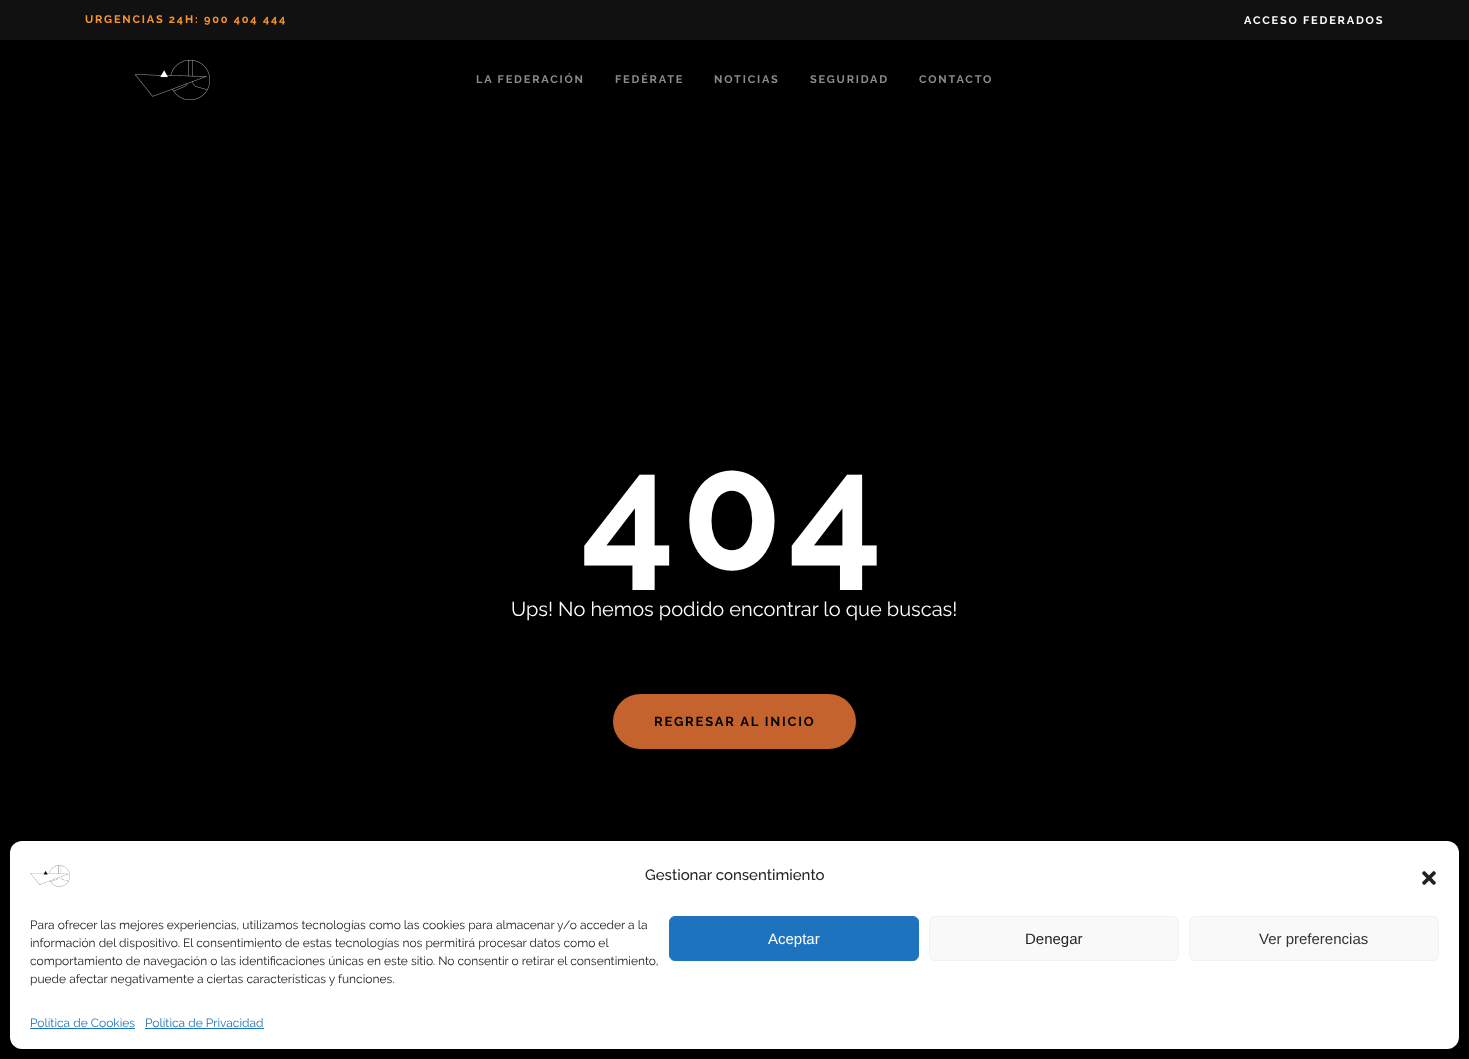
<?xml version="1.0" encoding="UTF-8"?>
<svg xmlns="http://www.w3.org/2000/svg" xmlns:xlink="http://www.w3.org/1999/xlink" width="1469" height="1059">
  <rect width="100%" height="100%" fill="#000000" />
  <rect width="1469" height="40" fill="#111111" />
  <image x="135" y="60" width="75" height="40" xlink:href="image1.png" />
  <rect x="613" y="694" width="243" height="55" rx="27.5" fill="#c4632d" />
  <rect x="10" y="841" width="1449" height="208" rx="12" fill="#ffffff" />
  <image x="30" y="865" width="40" height="22" xlink:href="image2.png" />
  <image x="1422" y="871" width="14" height="14" xlink:href="image3.png" />
  <rect x="669.5" y="916.5" width="249" height="44" rx="5.5" fill="#1e73be" stroke="#1e73be" />
  <rect x="929.5" y="916.5" width="249" height="44" rx="5.5" fill="#f9f9f9" stroke="#f2f2f2" />
  <rect x="1189.5" y="916.5" width="249" height="44" rx="5.5" fill="#f9f9f9" stroke="#f2f2f2" />
  <rect x="30" y="1028" width="105" height="1" fill="#1e73be" />
  <rect x="145" y="1028" width="119" height="1" fill="#1e73be" />
  <text x="85" y="23" style="font-family: Raleway; font-size: 11px; font-weight: 100; letter-spacing: 1.8px; fill: #fe952c">URGENCIAS 24H: 900 404 444</text>
  <text x="1244" y="24" style="font-family: Raleway; font-size: 11px; font-weight: 100; letter-spacing: 1.8px; fill: #ffffff">ACCESO FEDERADOS</text>
  <text x="476" y="83" style="font-family: Raleway; font-size: 11px; font-weight: 100; letter-spacing: 1.8px; fill: #8c8c8c">LA FEDERACIÓN</text>
  <text x="615" y="83" style="font-family: Raleway; font-size: 11px; font-weight: 100; letter-spacing: 1.8px; fill: #8c8c8c">FEDÉRATE</text>
  <text x="714" y="83" style="font-family: Raleway; font-size: 11px; font-weight: 100; letter-spacing: 1.8px; fill: #8c8c8c">NOTICIAS</text>
  <text x="810" y="83" style="font-family: Raleway; font-size: 11px; font-weight: 100; letter-spacing: 1.8px; fill: #8c8c8c">SEGURIDAD</text>
  <text x="919" y="83" style="font-family: Raleway; font-size: 11px; font-weight: 100; letter-spacing: 1.8px; fill: #8c8c8c">CONTACTO</text>
  <text x="581" y="569" style="font-family: Raleway; font-size: 165px; font-weight: 100; letter-spacing: 6px; fill: #ffffff">404</text>
  <text x="511" y="616" style="font-family: 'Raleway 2'; font-size: 20px; font-weight: 100; fill: #ffffff">Ups! No hemos podido encontrar lo que buscas!</text>
  <text x="654" y="726" style="font-family: Raleway; font-size: 13px; font-weight: 100; letter-spacing: 1.8px; fill: #000000">REGRESAR AL INICIO</text>
  <text x="645" y="880" style="font-family: 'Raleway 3'; font-size: 15px; font-weight: 100; fill: #222222">Gestionar consentimiento</text>
  <text x="30" y="929" style="font-family: 'Raleway 2'; font-size: 12px; font-weight: 100; fill: #222222">Para ofrecer las mejores experiencias, utilizamos tecnologías como las cookies para almacenar y/o acceder a la</text>
  <text x="30" y="947" style="font-family: 'Raleway 2'; font-size: 12px; font-weight: 100; fill: #222222">información del dispositivo. El consentimiento de estas tecnologías nos permitirá procesar datos como el</text>
  <text x="30" y="965" style="font-family: 'Raleway 2'; font-size: 12px; font-weight: 100; fill: #222222">comportamiento de navegación o las identificaciones únicas en este sitio. No consentir o retirar el consentimiento,</text>
  <text x="30" y="983" style="font-family: 'Raleway 2'; font-size: 12px; font-weight: 100; fill: #222222">puede afectar negativamente a ciertas características y funciones.</text>
  <text x="768" y="944" style="font-family: Liberation Sans; font-size: 15px; fill: #ffffff">Aceptar</text>
  <text x="1025" y="944" style="font-family: Liberation Sans; font-size: 15px; fill: #222222">Denegar</text>
  <text x="1259" y="944" style="font-family: Liberation Sans; font-size: 15px; fill: #333333">Ver preferencias</text>
  <text x="30" y="1027" style="font-family: 'Raleway 2'; font-size: 12px; font-weight: 100; fill: #1e73be">Política de Cookies</text>
  <text x="145" y="1027" style="font-family: 'Raleway 2'; font-size: 12px; font-weight: 100; fill: #1e73be">Política de Privacidad</text>
</svg>
